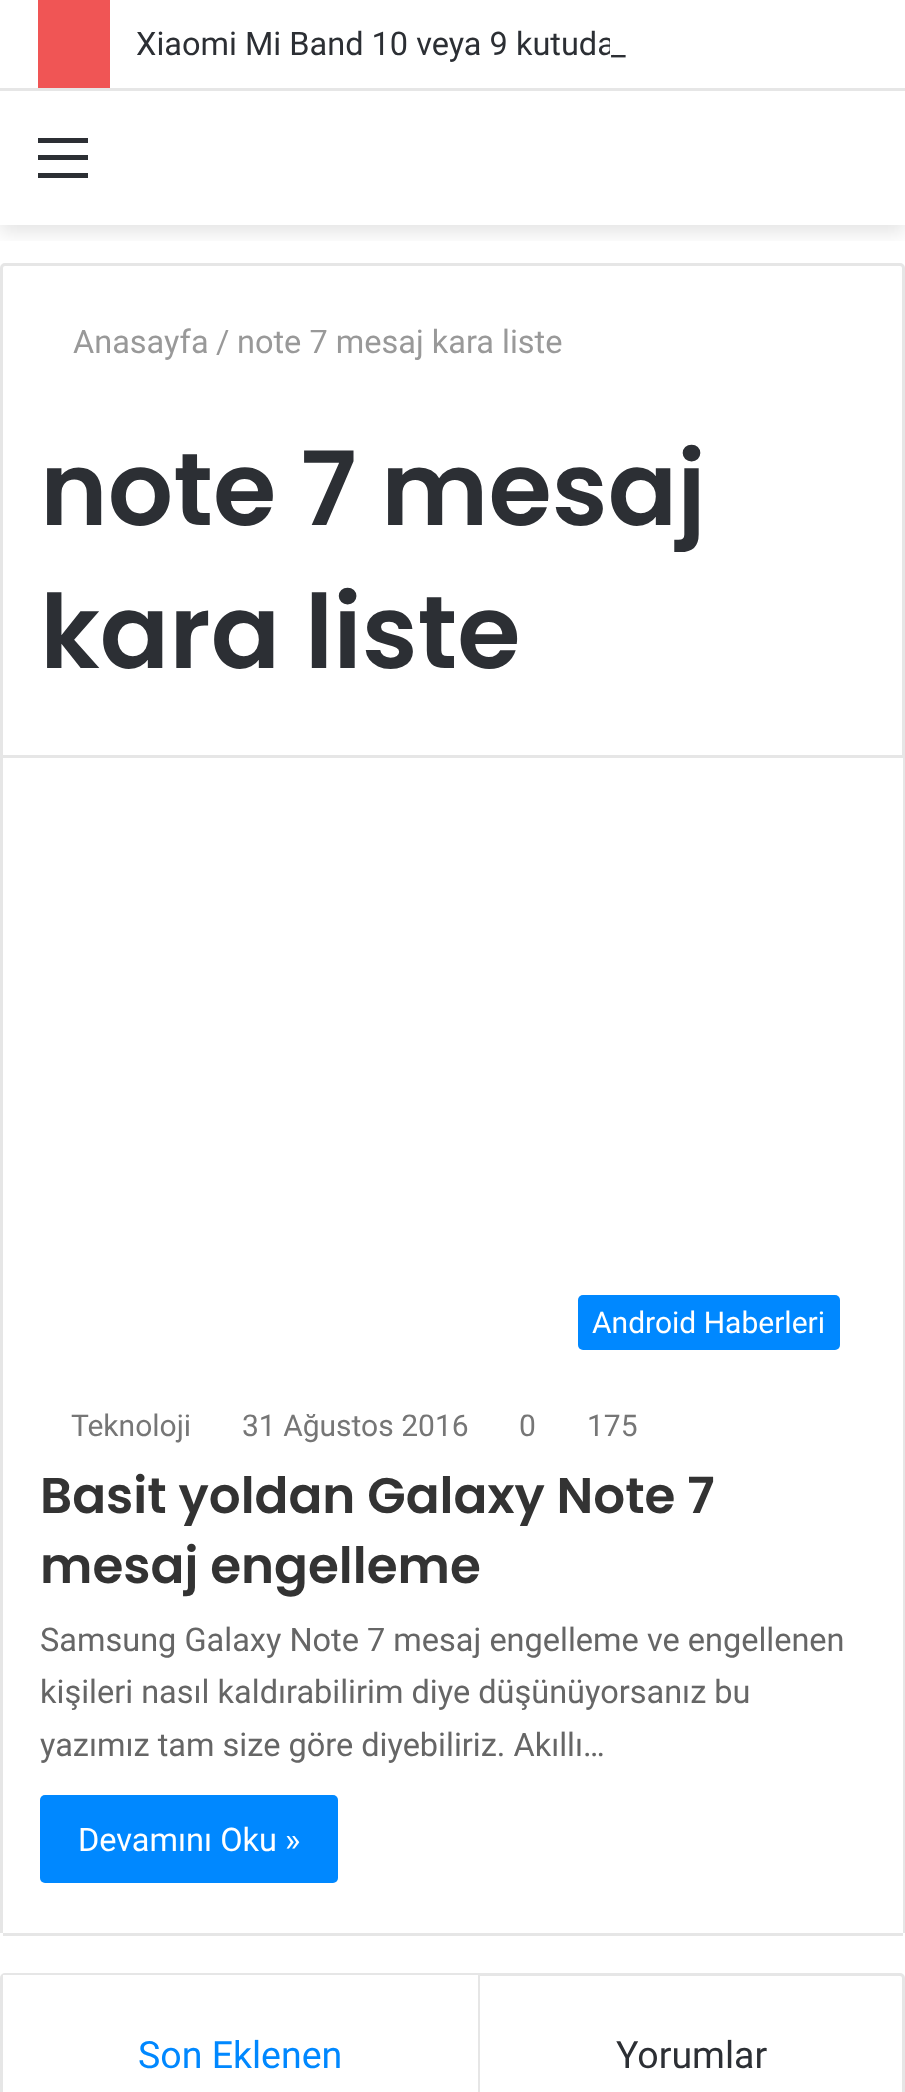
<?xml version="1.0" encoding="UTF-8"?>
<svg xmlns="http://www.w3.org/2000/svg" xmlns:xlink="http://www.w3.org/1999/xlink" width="905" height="2092">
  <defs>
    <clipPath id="clip1"><rect x="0" y="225" width="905" height="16" /></clipPath>
  </defs>
  <rect width="100%" height="100%" fill="#ffffff" />
  <g clip-path="url(#clip1)">
    <rect y="98" width="905" height="135" fill="#000000" fill-opacity="0.1" filter="blur(9px)" />
  </g>
  <rect x="8" y="86" width="889" height="2" fill="#ffffff" />
  <rect y="88" width="905" height="3" fill="#e6e6e6" />
  <rect x="38" width="72" height="88" fill="#f05555" />
  <rect x="38" y="155" width="50" height="5" fill="#2c2f34" />
  <rect x="38" y="138" width="50" height="5" fill="#2c2f34" />
  <rect x="38" y="173" width="50" height="5" fill="#2c2f34" />
  <path d="M 5 264.5 h 895 c 2 0 3.5 1.5 3.5 3.5 v 488.5 h -902 v -488.5 c 0 -2 1.5 -3.5 3.5 -3.5 z" fill="none" stroke="#e6e6e6" stroke-width="3" />
  <rect x="903" y="758" width="2" height="1175" fill="#e6e6e6" />
  <rect x="3" y="1933" width="900" height="3" fill="#e6e6e6" />
  <rect y="758" width="3" height="1175" fill="#e6e6e6" />
  <rect x="578" y="1295" width="262" height="55" rx="5" fill="#0088ff" />
  <rect x="40" y="1795" width="298" height="88" rx="5" fill="#0088ff" />
  <rect x="1.5" y="1974.5" width="902" height="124" rx="3.5" fill="none" stroke="#e6e6e6" stroke-width="3" />
  <rect x="3" y="1975" width="475" height="3" fill="#ffffff" />
  <path d="M 480 1975 v 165 l -2 -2 v -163 z" fill="#e6e6e6" />
  <text x="136" y="55" style="font-family: Roboto; font-size: 32.5px; fill: #2c2f34">Xiaomi Mi Band 10 veya 9 kutuda</text>
  <rect x="610" y="38" width="3" height="17" fill="#ffffff" />
  <text x="611" y="55" style="font-family: Roboto; font-size: 32.5px; fill: #2c2f34">_</text>
  <text x="73" y="353" style="font-family: Roboto; font-size: 32.5px; fill: #999999">Anasayfa</text>
  <text x="216" y="353" style="font-family: Roboto; font-size: 32.5px; fill: #999999">/</text>
  <text x="237" y="353" style="font-family: Roboto; font-size: 32.5px; fill: #999999">note 7 mesaj kara liste</text>
  <text x="40" y="525" style="font-family: Poppins; font-size: 102.5px; font-weight: 600; fill: #2c2f34">note 7 mesaj</text>
  <text x="40" y="668" style="font-family: Poppins; font-size: 102.5px; font-weight: 600; fill: #2c2f34">kara liste</text>
  <text x="592" y="1333" style="font-family: Roboto; font-size: 30px; fill: #ffffff">Android Haberleri</text>
  <text x="71" y="1436" style="font-family: Roboto; font-size: 30px; fill: #767676">Teknoloji</text>
  <text x="242" y="1436" style="font-family: Roboto; font-size: 30px; fill: #767676">31 Ağustos 2016</text>
  <text x="519" y="1436" style="font-family: Roboto; font-size: 30px; fill: #767676">0</text>
  <text x="587" y="1436" style="font-family: Roboto; font-size: 30px; fill: #767676">175</text>
  <text x="40" y="1513" style="font-family: Poppins; font-size: 50px; font-weight: 600; fill: #333333">Basit yoldan Galaxy Note 7</text>
  <text x="40" y="1583" style="font-family: Poppins; font-size: 50px; font-weight: 600; fill: #333333">mesaj engelleme</text>
  <text x="40" y="1651" style="font-family: Roboto; font-size: 32.5px; fill: #666666">Samsung Galaxy Note 7 mesaj engelleme ve engellenen</text>
  <text x="40" y="1703" style="font-family: Roboto; font-size: 32.5px; fill: #666666">kişileri nasıl kaldırabilirim diye düşünüyorsanız bu</text>
  <text x="40" y="1756" style="font-family: Roboto; font-size: 32.5px; fill: #666666">yazımız tam size göre diyebiliriz. Akıllı…</text>
  <text x="78" y="1851" style="font-family: Roboto; font-size: 32.5px; fill: #ffffff">Devamını Oku »</text>
  <text x="138" y="2068" style="font-family: Roboto; font-size: 37.5px; fill: #0088ff">Son Eklenen</text>
  <text x="616" y="2068" style="font-family: Roboto; font-size: 37.5px; fill: #2c2f34">Yorumlar</text>
</svg>
